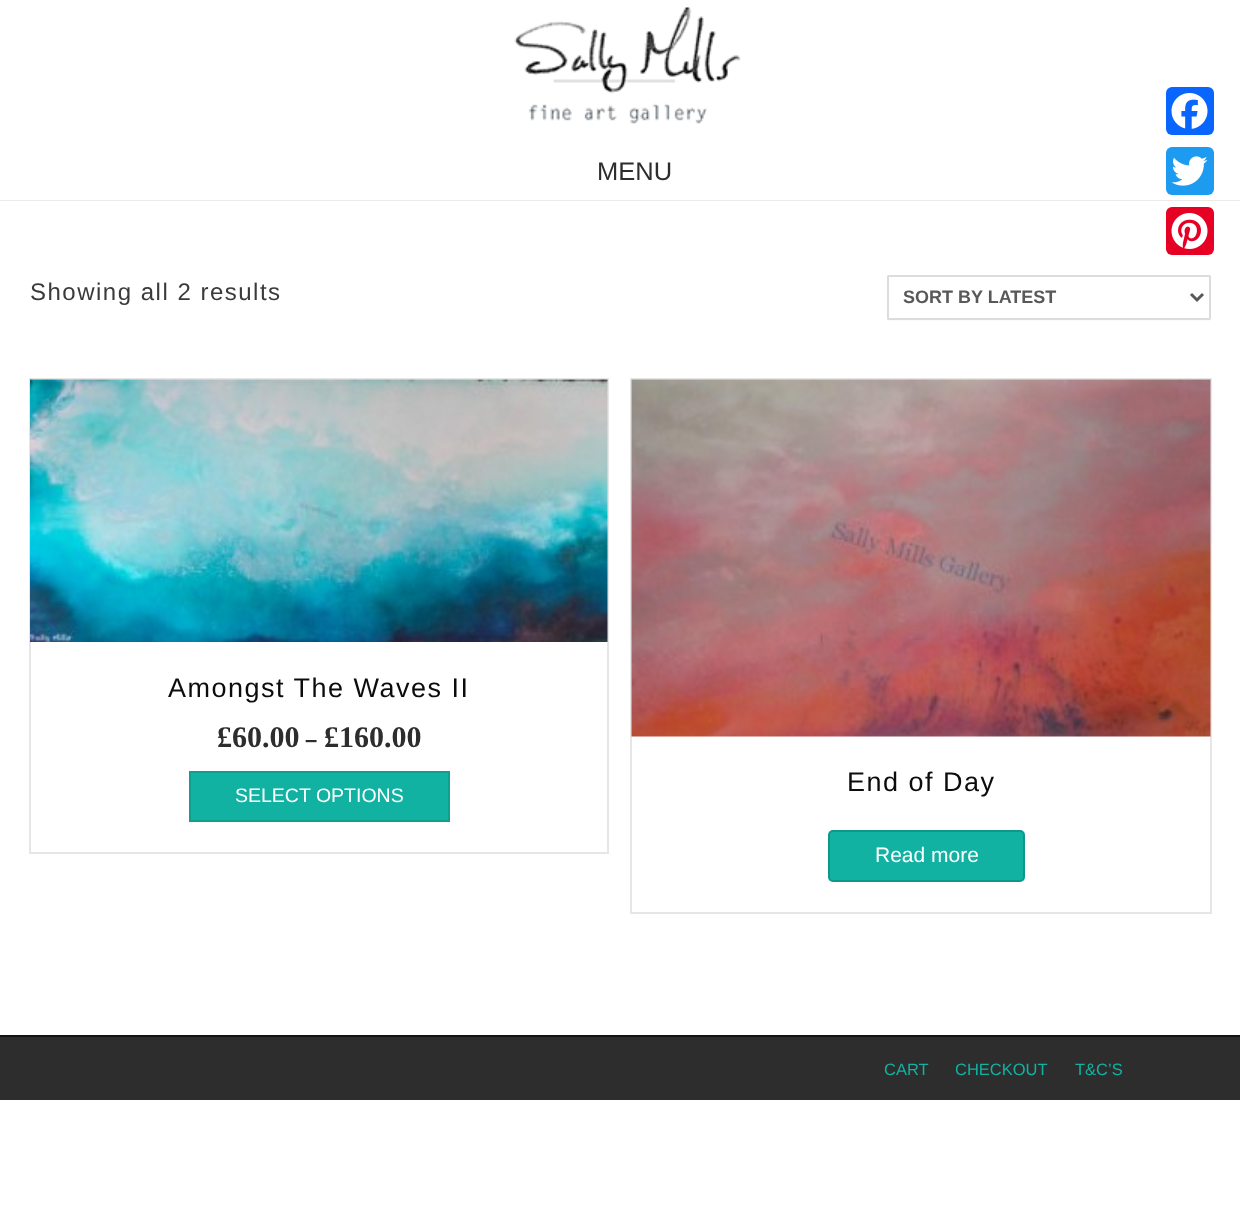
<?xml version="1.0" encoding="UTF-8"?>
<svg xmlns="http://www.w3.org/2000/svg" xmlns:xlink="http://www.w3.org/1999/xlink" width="1240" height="1209">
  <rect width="100%" height="100%" fill="#ffffff" />
  <path d="M 0 200 v 1 h 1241 v -199 h -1 v 198 z" fill="#ebebeb" />
  <image x="514" y="7" width="227" height="117" xlink:href="image1.png" />
  <path d="M 887 319 v 1 c 0 0 1 1 1 1 h 322 c 0 0 1 -1 1 -1 v -42 l -1 -2 v 42 c 0 1 0 2 -1 2 h -321 z" fill="#fafafa" />
  <rect x="888" y="276" width="322" height="43" rx="0.5" fill="#ffffff" stroke="#dcdcdc" stroke-width="2" />
  <path d="M 1191 294 l 6 6 l 6 -6" fill="none" stroke="#595959" stroke-width="3" />
  <rect x="30" y="379" width="578" height="474" fill="none" stroke="#e6e6e6" stroke-width="2" />
  <image x="30" y="379" width="578" height="263" xlink:href="image2.png" />
  <rect x="190" y="772" width="259" height="49" fill="#11b2a2" stroke="#0fa092" stroke-width="2" />
  <rect x="631" y="379" width="580" height="534" fill="none" stroke="#e6e6e6" stroke-width="2" />
  <image x="631" y="379" width="580" height="358" xlink:href="image3.png" />
  <rect x="828" y="830" width="197" height="52" rx="5" fill="#11b2a2" />
  <rect x="829" y="831" width="195" height="50" rx="4" fill="none" stroke="#000000" stroke-opacity="0.14" stroke-width="2" />
  <rect y="1037" width="1240" height="63" fill="#2d2d2d" />
  <rect y="1035" width="1240" height="2" fill="#121212" />
  <rect x="1166" y="87" width="48" height="48" rx="6" fill="#0866ff" />
  <image x="1171" y="93" width="37" height="36" xlink:href="image4.png" />
  <rect x="1166" y="147" width="48" height="48" rx="6" fill="#1d9bf0" />
  <image x="1171" y="156" width="37" height="30" xlink:href="image5.png" />
  <rect x="1166" y="207" width="48" height="48" rx="6" fill="#e60023" />
  <image x="1171" y="213" width="37" height="36" xlink:href="image6.png" />
  <text x="597" y="180" style="font-family: Liberation Sans; font-size: 25.5px; fill: #2d2d2d">MENU</text>
  <text x="30" y="300" style="font-family: Liberation Sans; font-size: 24px; letter-spacing: 1.5px; fill: #3a3a3a">Showing all 2 results</text>
  <text x="903" y="303" style="font-family: Liberation Sans; font-size: 18px; font-weight: bold; fill: #595959">SORT BY LATEST</text>
  <text x="168" y="697" style="font-family: Liberation Sans; font-size: 27px; letter-spacing: 1.5px; fill: #0c0c0c">Amongst The Waves II</text>
  <text x="217" y="747" style="font-family: Liberation Serif; font-size: 30px; font-weight: bold; fill: #2d2d2d">£60.00</text>
  <text x="305" y="747" style="font-family: Liberation Sans; font-size: 22px; font-weight: bold; fill: #2d2d2d">–</text>
  <text x="324" y="747" style="font-family: Liberation Serif; font-size: 30px; font-weight: bold; fill: #2d2d2d">£160.00</text>
  <text x="235" y="802" style="font-family: Liberation Sans; font-size: 19.5px; fill: #ffffff">SELECT OPTIONS</text>
  <text x="847" y="791" style="font-family: Liberation Sans; font-size: 27px; letter-spacing: 1.5px; fill: #0c0c0c">End of Day</text>
  <text x="875" y="862" style="font-family: Liberation Sans; font-size: 21px; fill: #ffffff">Read more</text>
  <text x="884" y="1075" style="font-family: Liberation Sans; font-size: 16.5px; fill: #11b2a2">CART</text>
  <text x="955" y="1075" style="font-family: Liberation Sans; font-size: 16.5px; fill: #11b2a2">CHECKOUT</text>
  <text x="1075" y="1075" style="font-family: Liberation Sans; font-size: 16.5px; fill: #11b2a2">T&amp;C’S</text>
</svg>
